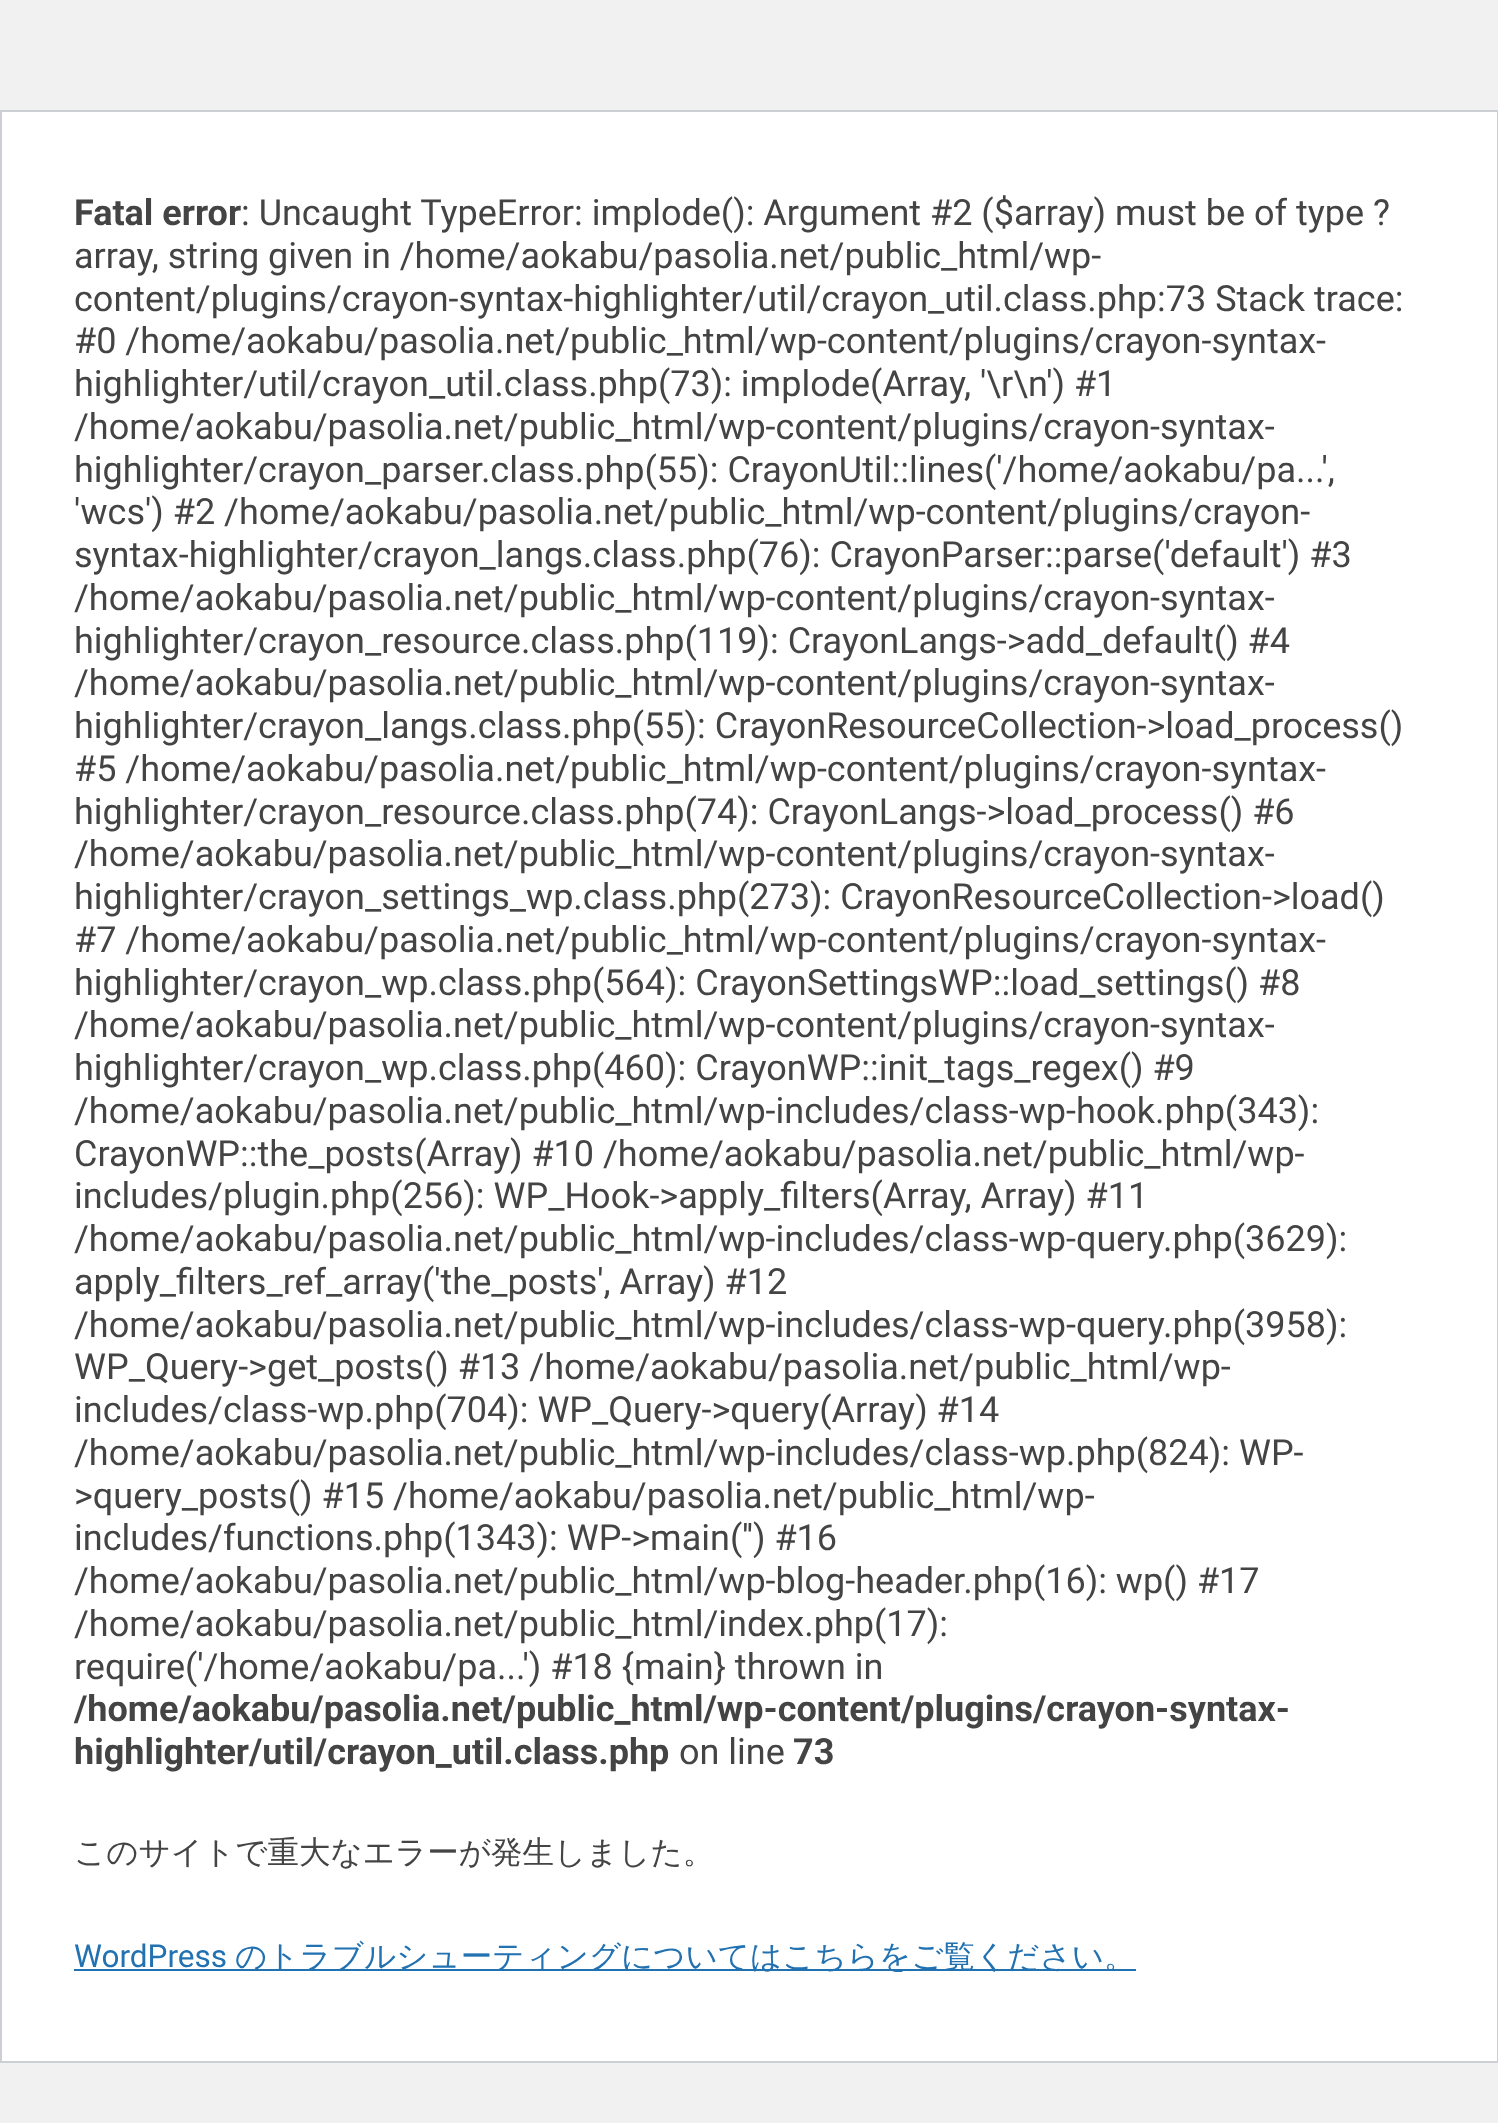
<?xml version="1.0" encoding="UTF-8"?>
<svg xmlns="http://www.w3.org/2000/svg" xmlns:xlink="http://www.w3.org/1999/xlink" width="1498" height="2123">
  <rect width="100%" height="100%" fill="#f1f1f1" />
  <rect x="1" y="111" width="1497" height="1951" fill="#ffffff" stroke="#ccd0d4" stroke-width="2" />
  <rect x="74" y="1969" width="1062" height="2" fill="#2271b1" />
  <text x="74" y="225" style="font-family: Roboto; font-size: 36px; font-weight: bold; fill: #444444">Fatal error</text>
  <text x="241" y="225" style="font-family: Roboto; font-size: 36px; fill: #444444">: Uncaught TypeError: implode(): Argument #2 ($array) must be of type ?</text>
  <text x="74" y="268" style="font-family: Roboto; font-size: 36px; fill: #444444">array, string given in /home/aokabu/pasolia.net/public_html/wp-</text>
  <text x="74" y="311" style="font-family: Roboto; font-size: 36px; fill: #444444">content/plugins/crayon-syntax-highlighter/util/crayon_util.class.php:73 Stack trace:</text>
  <text x="74" y="353" style="font-family: Roboto; font-size: 36px; fill: #444444">#0 /home/aokabu/pasolia.net/public_html/wp-content/plugins/crayon-syntax-</text>
  <text x="74" y="396" style="font-family: Roboto; font-size: 36px; fill: #444444">highlighter/util/crayon_util.class.php(73): implode(Array, '\r\n') #1</text>
  <text x="74" y="439" style="font-family: Roboto; font-size: 36px; fill: #444444">/home/aokabu/pasolia.net/public_html/wp-content/plugins/crayon-syntax-</text>
  <text x="74" y="482" style="font-family: Roboto; font-size: 36px; fill: #444444">highlighter/crayon_parser.class.php(55): CrayonUtil::lines('/home/aokabu/pa...',</text>
  <text x="74" y="524" style="font-family: Roboto; font-size: 36px; fill: #444444">'wcs') #2 /home/aokabu/pasolia.net/public_html/wp-content/plugins/crayon-</text>
  <text x="74" y="567" style="font-family: Roboto; font-size: 36px; fill: #444444">syntax-highlighter/crayon_langs.class.php(76): CrayonParser::parse('default') #3</text>
  <text x="74" y="610" style="font-family: Roboto; font-size: 36px; fill: #444444">/home/aokabu/pasolia.net/public_html/wp-content/plugins/crayon-syntax-</text>
  <text x="74" y="653" style="font-family: Roboto; font-size: 36px; fill: #444444">highlighter/crayon_resource.class.php(119): CrayonLangs-&gt;add_default() #4</text>
  <text x="74" y="695" style="font-family: Roboto; font-size: 36px; fill: #444444">/home/aokabu/pasolia.net/public_html/wp-content/plugins/crayon-syntax-</text>
  <text x="74" y="738" style="font-family: Roboto; font-size: 36px; fill: #444444">highlighter/crayon_langs.class.php(55): CrayonResourceCollection-&gt;load_process()</text>
  <text x="74" y="781" style="font-family: Roboto; font-size: 36px; fill: #444444">#5 /home/aokabu/pasolia.net/public_html/wp-content/plugins/crayon-syntax-</text>
  <text x="74" y="824" style="font-family: Roboto; font-size: 36px; fill: #444444">highlighter/crayon_resource.class.php(74): CrayonLangs-&gt;load_process() #6</text>
  <text x="74" y="866" style="font-family: Roboto; font-size: 36px; fill: #444444">/home/aokabu/pasolia.net/public_html/wp-content/plugins/crayon-syntax-</text>
  <text x="74" y="909" style="font-family: Roboto; font-size: 36px; fill: #444444">highlighter/crayon_settings_wp.class.php(273): CrayonResourceCollection-&gt;load()</text>
  <text x="74" y="952" style="font-family: Roboto; font-size: 36px; fill: #444444">#7 /home/aokabu/pasolia.net/public_html/wp-content/plugins/crayon-syntax-</text>
  <text x="74" y="995" style="font-family: Roboto; font-size: 36px; fill: #444444">highlighter/crayon_wp.class.php(564): CrayonSettingsWP::load_settings() #8</text>
  <text x="74" y="1037" style="font-family: Roboto; font-size: 36px; fill: #444444">/home/aokabu/pasolia.net/public_html/wp-content/plugins/crayon-syntax-</text>
  <text x="74" y="1080" style="font-family: Roboto; font-size: 36px; fill: #444444">highlighter/crayon_wp.class.php(460): CrayonWP::init_tags_regex() #9</text>
  <text x="74" y="1123" style="font-family: Roboto; font-size: 36px; fill: #444444">/home/aokabu/pasolia.net/public_html/wp-includes/class-wp-hook.php(343):</text>
  <text x="74" y="1166" style="font-family: Roboto; font-size: 36px; fill: #444444">CrayonWP::the_posts(Array) #10 /home/aokabu/pasolia.net/public_html/wp-</text>
  <text x="74" y="1208" style="font-family: Roboto; font-size: 36px; fill: #444444">includes/plugin.php(256): WP_Hook-&gt;apply_filters(Array, Array) #11</text>
  <text x="74" y="1251" style="font-family: Roboto; font-size: 36px; fill: #444444">/home/aokabu/pasolia.net/public_html/wp-includes/class-wp-query.php(3629):</text>
  <text x="74" y="1294" style="font-family: Roboto; font-size: 36px; fill: #444444">apply_filters_ref_array('the_posts', Array) #12</text>
  <text x="74" y="1337" style="font-family: Roboto; font-size: 36px; fill: #444444">/home/aokabu/pasolia.net/public_html/wp-includes/class-wp-query.php(3958):</text>
  <text x="74" y="1379" style="font-family: Roboto; font-size: 36px; fill: #444444">WP_Query-&gt;get_posts() #13 /home/aokabu/pasolia.net/public_html/wp-</text>
  <text x="74" y="1422" style="font-family: Roboto; font-size: 36px; fill: #444444">includes/class-wp.php(704): WP_Query-&gt;query(Array) #14</text>
  <text x="74" y="1465" style="font-family: Roboto; font-size: 36px; fill: #444444">/home/aokabu/pasolia.net/public_html/wp-includes/class-wp.php(824): WP-</text>
  <text x="74" y="1508" style="font-family: Roboto; font-size: 36px; fill: #444444">&gt;query_posts() #15 /home/aokabu/pasolia.net/public_html/wp-</text>
  <text x="74" y="1550" style="font-family: Roboto; font-size: 36px; fill: #444444">includes/functions.php(1343): WP-&gt;main('') #16</text>
  <text x="74" y="1593" style="font-family: Roboto; font-size: 36px; fill: #444444">/home/aokabu/pasolia.net/public_html/wp-blog-header.php(16): wp() #17</text>
  <text x="74" y="1636" style="font-family: Roboto; font-size: 36px; fill: #444444">/home/aokabu/pasolia.net/public_html/index.php(17):</text>
  <text x="74" y="1679" style="font-family: Roboto; font-size: 36px; fill: #444444">require('/home/aokabu/pa...') #18 {main} thrown in</text>
  <text x="74" y="1721" style="font-family: Roboto; font-size: 36px; font-weight: bold; fill: #444444">/home/aokabu/pasolia.net/public_html/wp-content/plugins/crayon-syntax-</text>
  <text x="74" y="1764" style="font-family: Roboto; font-size: 36px; font-weight: bold; fill: #444444">highlighter/util/crayon_util.class.php</text>
  <text x="679" y="1764" style="font-family: Roboto; font-size: 36px; fill: #444444">on line</text>
  <text x="793" y="1764" style="font-family: Roboto; font-size: 36px; font-weight: bold; fill: #444444">73</text>
  <text x="74" y="1863" style="font-family: WenQuanYi Zen Hei; font-size: 31.5px; font-weight: 500; fill: #444444">このサイトで重大なエラーが発生しました。</text>
  <text x="74" y="1967" style="font-family: Roboto; font-size: 31.5px; fill: #2271b1">WordPress</text>
  <text x="235" y="1967" style="font-family: WenQuanYi Zen Hei; font-size: 31.5px; font-weight: 500; fill: #2271b1">のトラブルシューティングについてはこちらをご覧ください。</text>
</svg>
